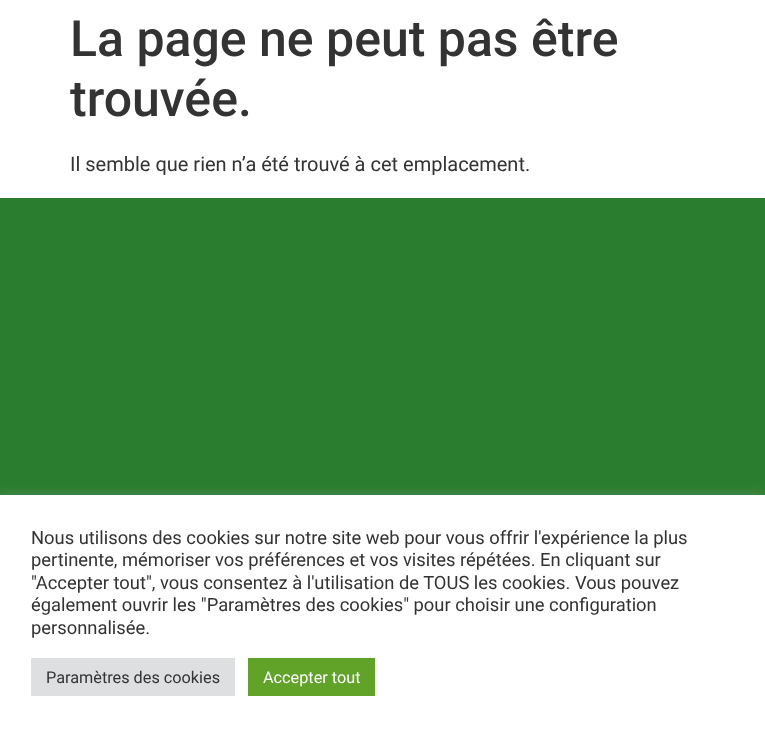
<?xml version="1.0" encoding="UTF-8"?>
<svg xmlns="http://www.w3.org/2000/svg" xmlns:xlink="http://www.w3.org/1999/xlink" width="765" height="733">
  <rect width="100%" height="100%" fill="#ffffff" />
  <rect y="198" width="765" height="297" fill="#2a7d2e" />
  <rect y="494" width="765" height="239" fill="#acabab" fill-opacity="0.3" filter="blur(6px)" />
  <rect y="495" width="765" height="238" fill="#ffffff" />
  <rect x="31" y="658" width="204" height="38" fill="#dedfe0" />
  <rect x="248" y="658" width="127" height="38" fill="#61a229" />
  <text x="70" y="56" style="font-family: Roboto; font-size: 50px; font-weight: 500; fill: #333333">La page ne peut pas être</text>
  <text x="70" y="116" style="font-family: Roboto; font-size: 50px; font-weight: 500; fill: #333333">trouvée.</text>
  <text x="70" y="171" style="font-family: Roboto; font-size: 20px; fill: #333333">Il semble que rien n’a été trouvé à cet emplacement.</text>
  <text x="31" y="544" style="font-family: Roboto; font-size: 18.35px; fill: #333333">Nous utilisons des cookies sur notre site web pour vous offrir l'expérience la plus</text>
  <text x="31" y="566" style="font-family: Roboto; font-size: 18.35px; fill: #333333">pertinente, mémoriser vos préférences et vos visites répétées. En cliquant sur</text>
  <text x="31" y="589" style="font-family: Roboto; font-size: 18.35px; fill: #333333">"Accepter tout", vous consentez à l'utilisation de TOUS les cookies. Vous pouvez</text>
  <text x="31" y="611" style="font-family: Roboto; font-size: 18.35px; fill: #333333">également ouvrir les "Paramètres des cookies" pour choisir une configuration</text>
  <text x="31" y="634" style="font-family: Roboto; font-size: 18.35px; fill: #333333">personnalisée.</text>
  <text x="46" y="683" style="font-family: Roboto; font-size: 16.25px; fill: #333333">Paramètres des cookies</text>
  <text x="263" y="683" style="font-family: Roboto; font-size: 16.25px; fill: #ffffff">Accepter tout</text>
</svg>
